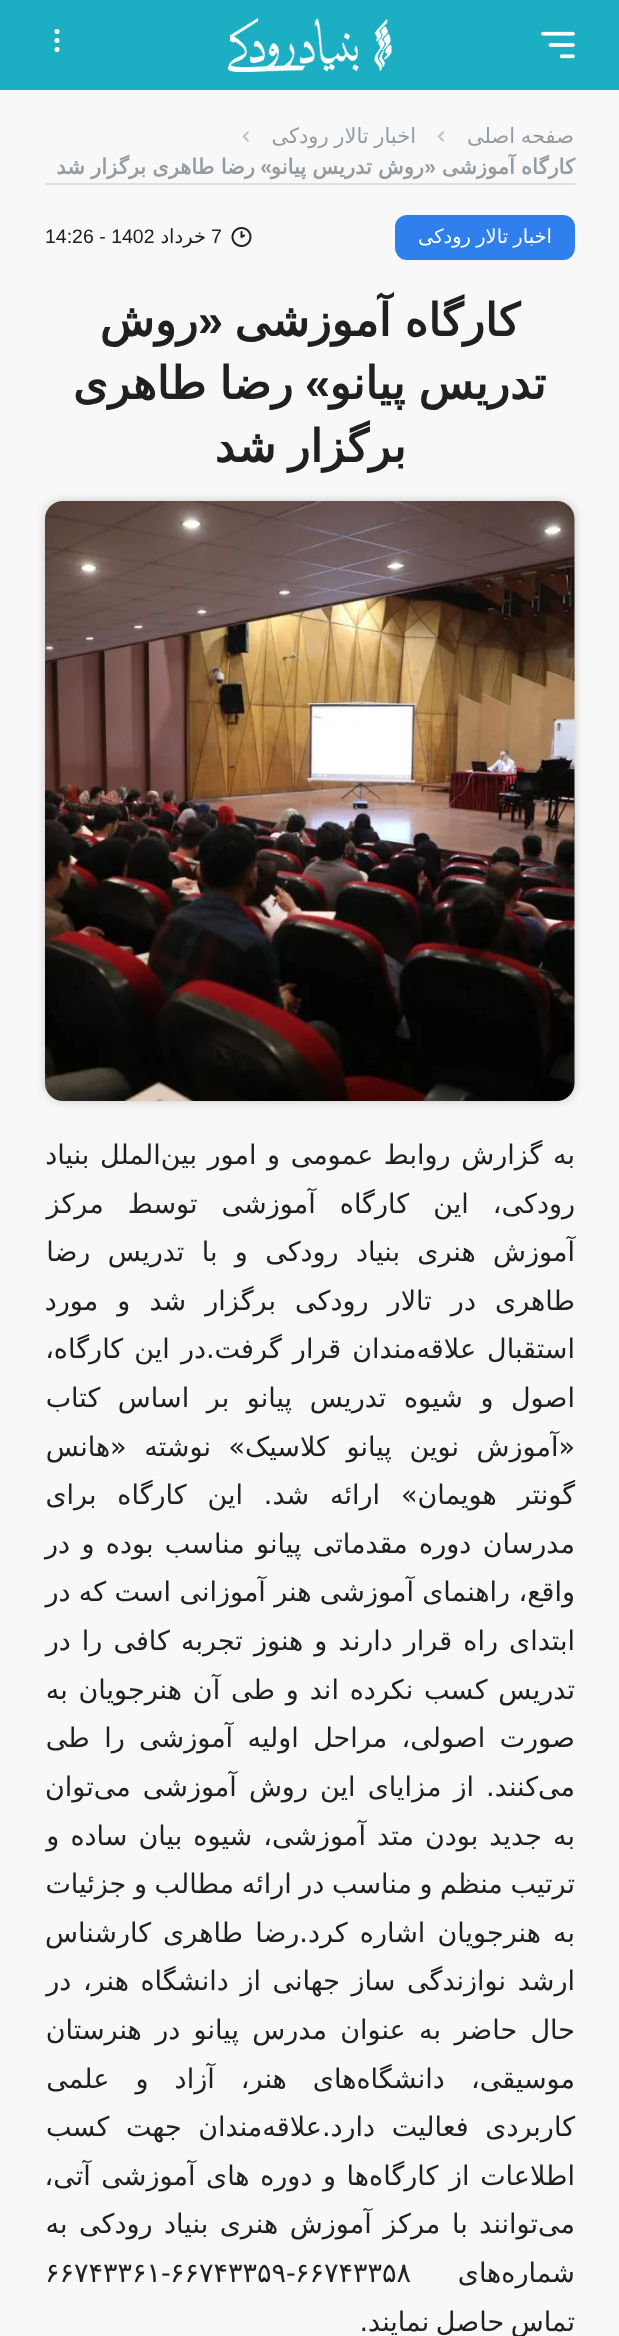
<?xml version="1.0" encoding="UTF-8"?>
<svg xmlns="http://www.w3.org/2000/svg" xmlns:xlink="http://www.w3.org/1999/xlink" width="619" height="2336">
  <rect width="100%" height="100%" fill="#f8f8f8" />
  <rect width="619" height="90" fill="#1caec3" />
  <image x="541" y="31" width="34" height="28" xlink:href="image1.png" />
  <image x="228" y="18" width="164" height="54" xlink:href="image2.png" />
  <image x="54" y="28" width="6" height="25" xlink:href="image3.png" />
  <rect x="45" y="183" width="530" height="2" fill="#e1e0e0" />
  <image x="438" y="131" width="7" height="11" xlink:href="image4.png" />
  <image x="242" y="131" width="7" height="11" xlink:href="image5.png" />
  <rect x="395" y="215" width="180" height="45" rx="12" fill="#2f80ed" />
  <image x="231" y="227" width="21" height="20" xlink:href="image6.png" />
  <rect x="45" y="501" width="530" height="600" rx="18" fill="#c7c7c7" filter="blur(5px)" />
  <image x="45" y="501" width="530" height="600" xlink:href="image7.png" />
  <text x="574" y="143" word-spacing="-1" style="font-family: DejaVu Sans; font-size: 21px; direction: rtl; fill: #949ca2">صفحه اصلی</text>
  <text x="416" y="143" word-spacing="-1" style="font-family: DejaVu Sans; font-size: 21px; direction: rtl; fill: #949ca2">اخبار تالار رودکی</text>
  <text x="575" y="174" word-spacing="-0.5" style="font-family: DejaVu Sans; font-size: 21px; font-weight: bold; direction: rtl; fill: #949ca2">کارگاه آموزشی</text>
  <text x="436" y="174" style="font-family: Liberation Sans; font-size: 21px; font-weight: bold; direction: rtl; fill: #949ca2">«</text>
  <text x="272" y="174" style="font-family: Liberation Sans; font-size: 21px; font-weight: bold; direction: rtl; fill: #949ca2">»</text>
  <text x="424" y="174" word-spacing="-0.5" style="font-family: DejaVu Sans; font-size: 21px; font-weight: bold; direction: rtl; fill: #949ca2">روش تدریس پیانو</text>
  <text x="255" y="174" word-spacing="-0.5" style="font-family: DejaVu Sans; font-size: 21px; font-weight: bold; direction: rtl; fill: #949ca2">رضا طاهری برگزار شد</text>
  <text x="552" y="243" word-spacing="-1" style="font-family: DejaVu Sans; font-size: 19.5px; direction: rtl; fill: #ffffff">اخبار تالار رودکی</text>
  <text x="211" y="243" style="font-family: Liberation Sans; font-size: 19.5px; fill: #202020">7</text>
  <text x="206" y="243" style="font-family: DejaVu Sans; font-size: 19.5px; direction: rtl; fill: #202020">خرداد</text>
  <text x="45" y="243" style="font-family: Liberation Sans; font-size: 19.5px; fill: #202020">14:26 - 1402</text>
  <text x="520" y="336" word-spacing="-1" style="font-family: DejaVu Sans; font-size: 45px; font-weight: bold; direction: rtl; fill: #202020">کارگاه آموزشی</text>
  <text x="223" y="336" style="font-family: Liberation Sans; font-size: 45px; font-weight: bold; direction: rtl; fill: #202020">«</text>
  <text x="198" y="336" style="font-family: DejaVu Sans; font-size: 45px; font-weight: bold; direction: rtl; fill: #202020">روش</text>
  <text x="330" y="399" style="font-family: Liberation Sans; font-size: 45px; font-weight: bold; direction: rtl; fill: #202020">»</text>
  <text x="546" y="399" word-spacing="-1" style="font-family: DejaVu Sans; font-size: 45px; font-weight: bold; direction: rtl; fill: #202020">تدریس پیانو</text>
  <text x="293" y="399" word-spacing="-1" style="font-family: DejaVu Sans; font-size: 45px; font-weight: bold; direction: rtl; fill: #202020">رضا طاهری</text>
  <text x="406" y="462" word-spacing="-2" style="font-family: DejaVu Sans; font-size: 45px; font-weight: bold; direction: rtl; fill: #202020">برگزار شد</text>
  <text x="575" y="1164" word-spacing="2" style="font-family: DejaVu Sans; font-size: 27px; direction: rtl; fill: #202020">به گزارش روابط عمومی و امور بین‌الملل بنیاد</text>
  <text x="575" y="1213" word-spacing="15.5" style="font-family: DejaVu Sans; font-size: 27px; direction: rtl; fill: #202020">رودکی، این کارگاه آموزشی توسط مرکز</text>
  <text x="575" y="1261" word-spacing="8.75" style="font-family: DejaVu Sans; font-size: 27px; direction: rtl; fill: #202020">آموزش هنری بنیاد رودکی و با تدریس رضا</text>
  <text x="575" y="1310" word-spacing="10.5" style="font-family: DejaVu Sans; font-size: 27px; direction: rtl; fill: #202020">طاهری در تالار رودکی برگزار شد و مورد</text>
  <text x="575" y="1358" word-spacing="2.5" style="font-family: DejaVu Sans; font-size: 27px; direction: rtl; fill: #202020">استقبال علاقه‌مندان قرار گرفت.در این کارگاه،</text>
  <text x="575" y="1407" word-spacing="9" style="font-family: DejaVu Sans; font-size: 27px; direction: rtl; fill: #202020">اصول و شیوه تدریس پیانو بر اساس کتاب</text>
  <text x="575" y="1456" word-spacing="9" style="font-family: DejaVu Sans; font-size: 27px; direction: rtl; fill: #202020">«آموزش نوین پیانو کلاسیک» نوشته «هانس</text>
  <text x="575" y="1504" word-spacing="12.25" style="font-family: DejaVu Sans; font-size: 27px; direction: rtl; fill: #202020">گونتر‌‌ هویمان» ارائه شد. این کارگاه برای</text>
  <text x="575" y="1553" word-spacing="2.75" style="font-family: DejaVu Sans; font-size: 27px; direction: rtl; fill: #202020">مدرسان دوره مقدماتی پیانو مناسب بوده و در</text>
  <text x="575" y="1601" word-spacing="-0.25" style="font-family: DejaVu Sans; font-size: 27px; direction: rtl; fill: #202020">واقع، راهنمای آموزشی هنر آموزانی است که در</text>
  <text x="575" y="1650" word-spacing="2.5" style="font-family: DejaVu Sans; font-size: 27px; direction: rtl; fill: #202020">ابتدای راه قرار دارند و هنوز تجربه کافی را در</text>
  <text x="575" y="1699" word-spacing="2.25" style="font-family: DejaVu Sans; font-size: 27px; direction: rtl; fill: #202020">تدریس کسب نکرده اند و طی آن هنرجویان به</text>
  <text x="575" y="1747" word-spacing="5.75" style="font-family: DejaVu Sans; font-size: 27px; direction: rtl; fill: #202020">صورت اصولی، مراحل اولیه آموزشی را طی</text>
  <text x="575" y="1796" word-spacing="3.5" style="font-family: DejaVu Sans; font-size: 27px; direction: rtl; fill: #202020">می‌کنند. از مزایای این روش آموزشی می‌توان</text>
  <text x="575" y="1845" word-spacing="2.5" style="font-family: DejaVu Sans; font-size: 27px; direction: rtl; fill: #202020">به جدید بودن متد آموزشی، شیوه بیان ساده و</text>
  <text x="575" y="1893" word-spacing="-1" style="font-family: DejaVu Sans; font-size: 27px; direction: rtl; fill: #202020">ترتیب منظم و مناسب در ارائه مطالب و جزئیات</text>
  <text x="575" y="1942" word-spacing="3.5" style="font-family: DejaVu Sans; font-size: 27px; direction: rtl; fill: #202020">به هنرجویان اشاره کرد.رضا طاهری کارشناس</text>
  <text x="575" y="1990" word-spacing="3" style="font-family: DejaVu Sans; font-size: 27px; direction: rtl; fill: #202020">ارشد نوازندگی ساز جهانی از دانشگاه هنر، در</text>
  <text x="575" y="2039" word-spacing="4.75" style="font-family: DejaVu Sans; font-size: 27px; direction: rtl; fill: #202020">حال حاضر به عنوان مدرس پیانو در هنرستان</text>
  <text x="575" y="2088" word-spacing="17.5" style="font-family: DejaVu Sans; font-size: 27px; direction: rtl; fill: #202020">موسیقی، دانشگاه‌های هنر، آزاد و علمی</text>
  <text x="575" y="2136" word-spacing="8" style="font-family: DejaVu Sans; font-size: 27px; direction: rtl; fill: #202020">کاربردی فعالیت دارد.علاقه‌مندان جهت کسب</text>
  <text x="575" y="2185" word-spacing="2" style="font-family: DejaVu Sans; font-size: 27px; direction: rtl; fill: #202020">اطلاعات از کارگاه‌ها و دوره های آموزشی آتی،</text>
  <text x="575" y="2233" word-spacing="3" style="font-family: DejaVu Sans; font-size: 27px; direction: rtl; fill: #202020">می‌توانند با مرکز آموزش هنری بنیاد رودکی به</text>
  <text x="575" y="2282" style="font-family: DejaVu Sans; font-size: 27px; direction: rtl; fill: #202020">شماره‌های</text>
  <text x="295" y="2282" style="font-family: DejaVu Sans; font-size: 27px; fill: #202020">۶۶۷۴۳۳۵۸</text>
  <text x="170" y="2282" style="font-family: DejaVu Sans; font-size: 27px; fill: #202020">۶۶۷۴۳۳۵۹-</text>
  <text x="45" y="2282" style="font-family: DejaVu Sans; font-size: 27px; fill: #202020">۶۶۷۴۳۳۶۱-</text>
  <text x="575" y="2331" word-spacing="-2" style="font-family: DejaVu Sans; font-size: 27px; direction: rtl; fill: #202020">تماس حاصل نمایند.</text>
</svg>
